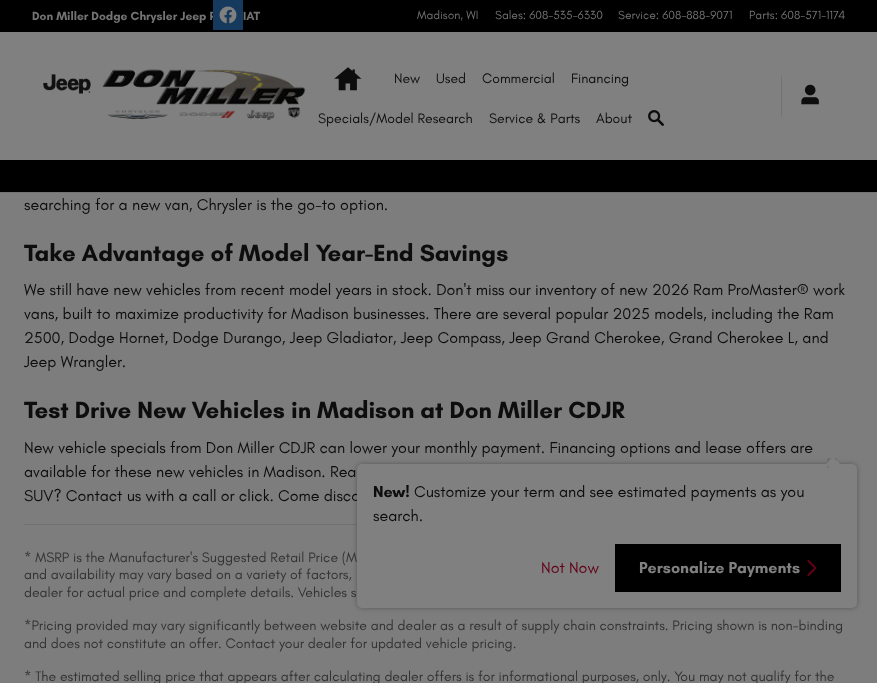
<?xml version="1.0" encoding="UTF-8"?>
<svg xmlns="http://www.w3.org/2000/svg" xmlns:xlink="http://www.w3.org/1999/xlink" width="877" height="683">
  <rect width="100%" height="100%" fill="#7d7d7d" />
  <rect y="32" width="877" height="128" fill="#808080" />
  <rect y="192" width="877" height="1" fill="#737373" />
  <rect width="877" height="32" fill="#000000" />
  <image x="43" y="74" width="48" height="20" xlink:href="image2.png" />
  <image x="102" y="69" width="204" height="51" xlink:href="image3.png" />
  <image x="334" y="67" width="28" height="24" xlink:href="image4.png" />
  <image x="648" y="110" width="16" height="16" xlink:href="image5.png" />
  <rect x="781" y="76" width="1" height="41" fill="#737373" />
  <image x="801" y="84" width="18" height="21" xlink:href="image6.png" />
  <rect y="160" width="877" height="32" fill="#000000" />
  <rect x="24" y="524" width="333" height="1" fill="#717171" />
  <rect x="357" y="464" width="500" height="144" rx="5" fill="#000000" fill-opacity="0.3" filter="blur(2.5px)" />
  <text x="32" y="20" style="font-family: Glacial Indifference; font-size: 12px; font-weight: bold; fill: #737373">Don Miller Dodge Chrysler Jeep R</text>
  <image x="213" y="0" width="30" height="30" xlink:href="image1.png" />
  <text x="243" y="20" style="font-family: Glacial Indifference; font-size: 12px; font-weight: bold; fill: #737373">IAT</text>
  <text x="417" y="19" style="font-family: Glacial Indifference; font-size: 12px; fill: #737373">Madison, WI</text>
  <text x="495" y="19" style="font-family: Glacial Indifference; font-size: 12px; fill: #737373">Sales: 608-535-6330</text>
  <text x="618" y="19" style="font-family: Glacial Indifference; font-size: 12px; fill: #737373">Service: 608-888-9071</text>
  <text x="749" y="19" style="font-family: Glacial Indifference; font-size: 12px; fill: #737373">Parts: 608-571-1174</text>
  <text x="394" y="83" style="font-family: Glacial Indifference; font-size: 14px; fill: #0d0d0d">New</text>
  <text x="436" y="83" style="font-family: Glacial Indifference; font-size: 14px; fill: #0d0d0d">Used</text>
  <text x="482" y="83" style="font-family: Glacial Indifference; font-size: 14px; fill: #0d0d0d">Commercial</text>
  <text x="571" y="83" style="font-family: Glacial Indifference; font-size: 14px; fill: #0d0d0d">Financing</text>
  <text x="318" y="123" style="font-family: Glacial Indifference; font-size: 14px; fill: #0d0d0d">Specials/Model Research</text>
  <text x="489" y="123" style="font-family: Glacial Indifference; font-size: 14px; fill: #0d0d0d">Service &amp; Parts</text>
  <text x="596" y="123" style="font-family: Glacial Indifference; font-size: 14px; fill: #0d0d0d">About</text>
  <text x="24" y="210" style="font-family: Glacial Indifference; font-size: 16px; fill: #0d0d0d">searching for a new van, Chrysler is the go-to option.</text>
  <text x="24" y="261" style="font-family: Glacial Indifference; font-size: 24px; font-weight: bold; fill: #0d0d0d">Take Advantage of Model Year-End Savings</text>
  <text x="24" y="295" style="font-family: Glacial Indifference; font-size: 16px; fill: #0d0d0d">We still have new vehicles from recent model years in stock. Don't miss our inventory of new 2026 Ram ProMaster® work</text>
  <text x="24" y="319" style="font-family: Glacial Indifference; font-size: 16px; fill: #0d0d0d">vans, built to maximize productivity for Madison businesses. There are several popular 2025 models, including the Ram</text>
  <text x="24" y="343" style="font-family: Glacial Indifference; font-size: 16px; fill: #0d0d0d">2500, Dodge Hornet, Dodge Durango, Jeep Gladiator, Jeep Compass, Jeep Grand Cherokee, Grand Cherokee L, and</text>
  <text x="24" y="367" style="font-family: Glacial Indifference; font-size: 16px; fill: #0d0d0d">Jeep Wrangler.</text>
  <text x="24" y="418" style="font-family: Glacial Indifference; font-size: 24px; font-weight: bold; fill: #0d0d0d">Test Drive New Vehicles in Madison at Don Miller CDJR</text>
  <text x="24" y="453" style="font-family: Glacial Indifference; font-size: 16px; fill: #0d0d0d">New vehicle specials from Don Miller CDJR can lower your monthly payment. Financing options and lease offers are</text>
  <text x="24" y="477" style="font-family: Glacial Indifference; font-size: 16px; fill: #0d0d0d">available for these new vehicles in Madison. Rea</text>
  <text x="24" y="501" style="font-family: Glacial Indifference; font-size: 16px; fill: #0d0d0d">SUV? Contact us with a call or click. Come disco</text>
  <text x="24" y="562" style="font-family: Glacial Indifference; font-size: 14px; fill: #323232">* MSRP is the Manufacturer's Suggested Retail Price (M</text>
  <text x="24" y="579" style="font-family: Glacial Indifference; font-size: 14px; fill: #323232">and availability may vary based on a variety of factors,</text>
  <text x="24" y="597" style="font-family: Glacial Indifference; font-size: 14px; fill: #323232">dealer for actual price and complete details. Vehicles s</text>
  <text x="24" y="630" style="font-family: Glacial Indifference; font-size: 14px; fill: #323232">*Pricing provided may vary significantly between website and dealer as a result of supply chain constraints. Pricing shown is non-binding</text>
  <text x="24" y="648" style="font-family: Glacial Indifference; font-size: 14px; fill: #323232">and does not constitute an offer. Contact your dealer for updated vehicle pricing.</text>
  <text x="24" y="681" style="font-family: Glacial Indifference; font-size: 14px; fill: #323232">* The estimated selling price that appears after calculating dealer offers is for informational purposes, only. You may not qualify for the</text>
  <rect x="357" y="464" width="500" height="144" rx="5" fill="#808080" />
  <rect x="827" y="458" width="10" height="10" fill="#000000" fill-opacity="0.1" filter="blur(0.5px)" />
  <path d="M 833 457 l 7 7 l -7 7 l -7 -7 z" fill="#808080" />
  <text x="373" y="497" style="font-family: Glacial Indifference; font-size: 16px; font-weight: bold; fill: #0d0d0d">New!</text>
  <text x="414" y="497" style="font-family: Glacial Indifference; font-size: 16px; fill: #0d0d0d">Customize your term and see estimated payments as you</text>
  <text x="373" y="521" style="font-family: Glacial Indifference; font-size: 16px; fill: #0d0d0d">search.</text>
  <text x="541" y="573" style="font-family: Glacial Indifference; font-size: 16px; fill: #620018">Not Now</text>
  <rect x="615" y="544" width="226" height="48" fill="#000000" />
  <text x="639" y="573" style="font-family: Glacial Indifference; font-size: 16px; font-weight: bold; fill: #808080">Personalize Payments</text>
  <image x="807" y="560" width="9" height="16" xlink:href="image7.png" />
</svg>
